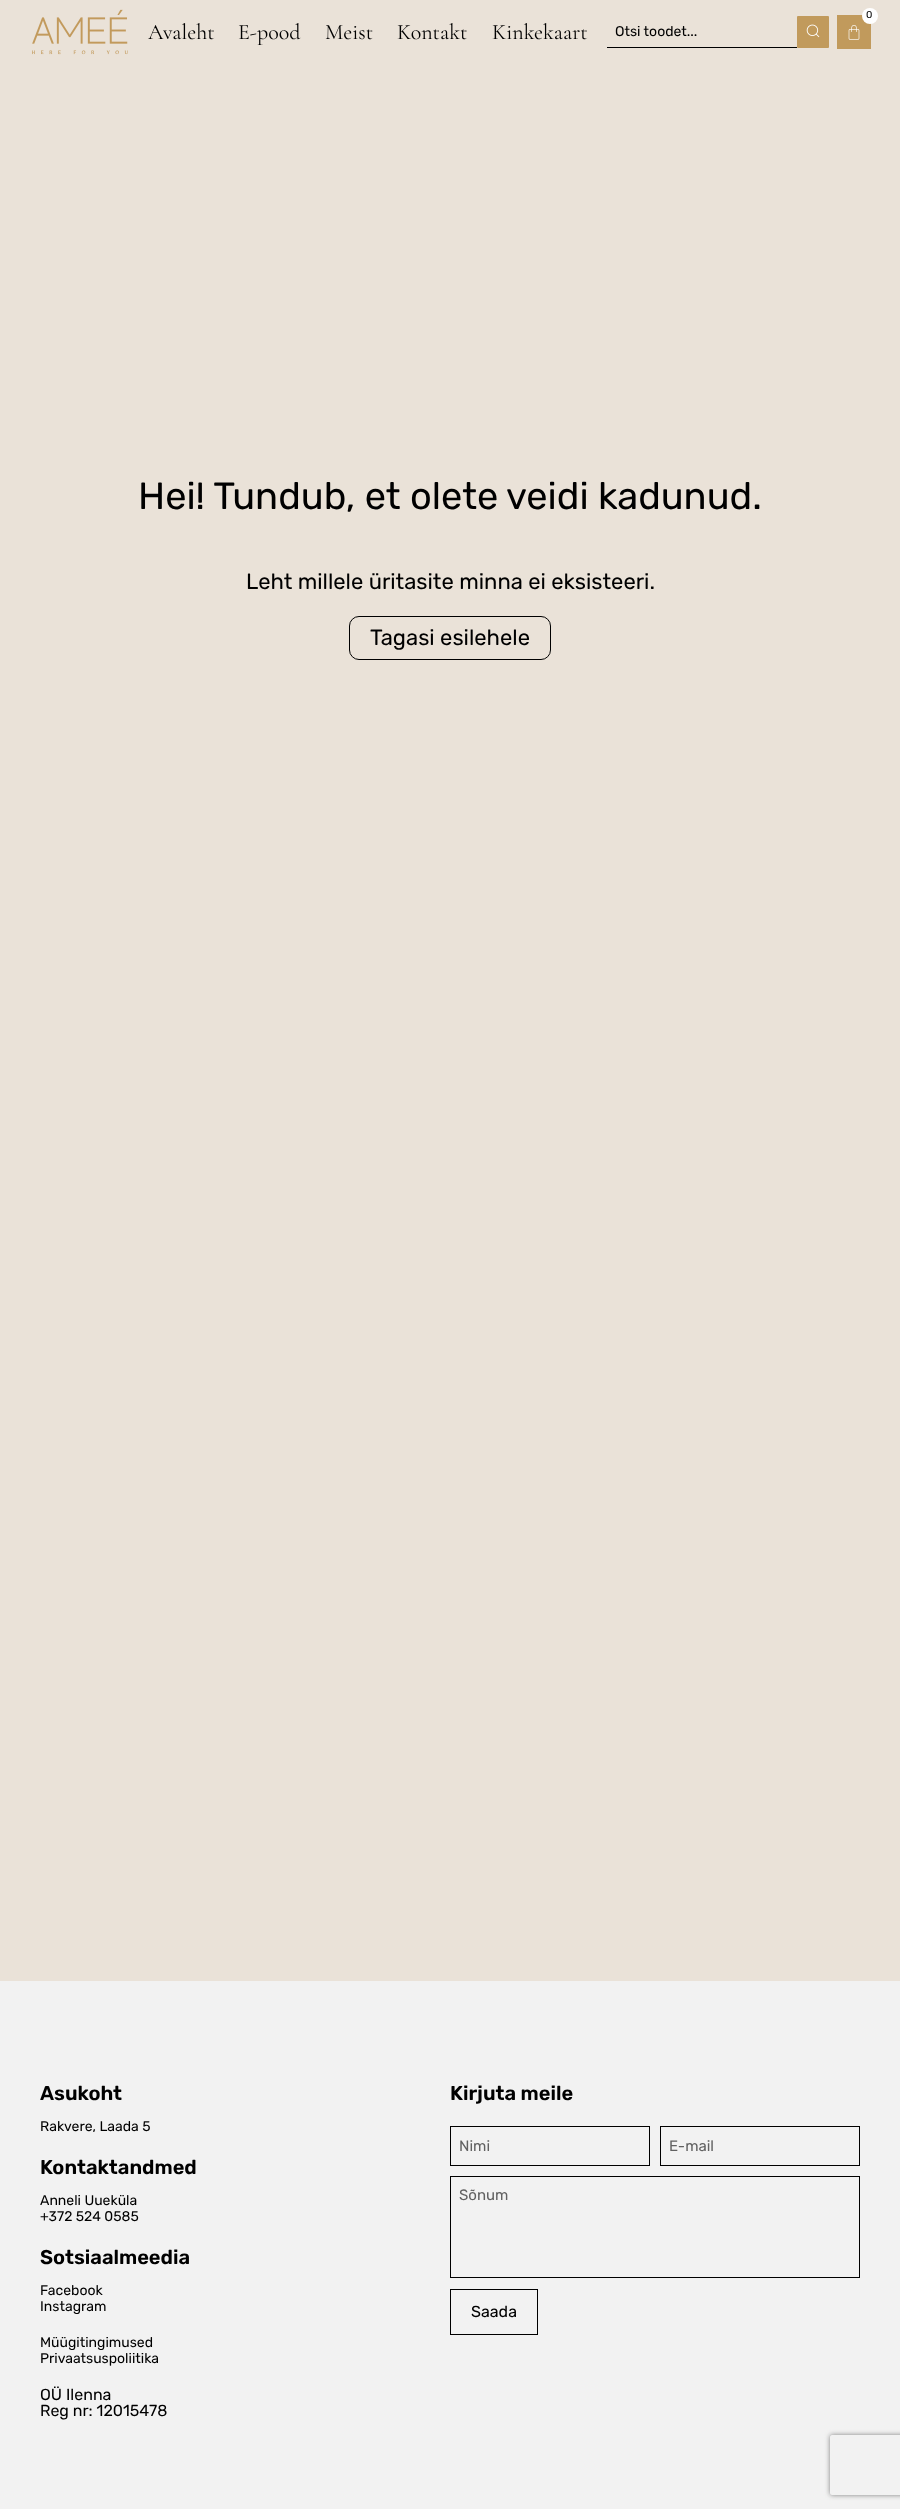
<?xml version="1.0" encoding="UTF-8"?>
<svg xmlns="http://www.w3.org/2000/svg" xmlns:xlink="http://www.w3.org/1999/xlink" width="900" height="2509">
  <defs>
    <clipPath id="clip1"><path d="M 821 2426 h 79 v 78 h -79 z m 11 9 h 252 c 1 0 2 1 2 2 v 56 c 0 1 -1 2 -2 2 h -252 c -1 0 -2 -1 -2 -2 v -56 c 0 -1 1 -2 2 -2 z" clip-rule="evenodd" /></clipPath>
  </defs>
  <rect width="100%" height="100%" fill="#eae2d8" />
  <image x="32" y="9" width="96" height="46" xlink:href="image1.png" />
  <rect x="837" y="15" width="34" height="34" fill="#c19a5c" />
  <circle cx="870" cy="16" r="8" fill="#ffffff" />
  <image x="848" y="25" width="12" height="15" xlink:href="image2.png" />
  <rect x="607" y="47" width="190" height="1" fill="#000000" />
  <rect x="797" y="16" width="32" height="32" rx="1" fill="#c19a5c" />
  <image x="806" y="24" width="14" height="14" xlink:href="image3.png" />
  <rect x="349.5" y="616.5" width="201" height="43" rx="9.5" fill="none" stroke="#000000" />
  <rect y="1981" width="900" height="528" fill="#f2f2f2" />
  <rect x="450.5" y="2126.5" width="199" height="39" fill="none" stroke="#000000" />
  <rect x="660.5" y="2126.5" width="199" height="39" fill="none" stroke="#000000" />
  <rect x="450.5" y="2176.5" width="409" height="101" fill="none" stroke="#000000" />
  <rect x="450.5" y="2289.5" width="87" height="45" fill="none" stroke="#000000" />
  <g clip-path="url(#clip1)">
    <rect x="830" y="2435" width="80" height="60" rx="2" fill="#808080" filter="blur(2.5px)" />
  </g>
  <text x="866" y="18" style="font-family: Rubik; font-size: 10px; fill: #000000">0</text>
  <text x="148" y="39" style="font-family: Cormorant Garamond; font-size: 22px; fill: #000000">Avaleht</text>
  <text x="238" y="39" style="font-family: Cormorant Garamond; font-size: 22px; fill: #000000">E-pood</text>
  <text x="325" y="39" style="font-family: Cormorant Garamond; font-size: 22px; fill: #000000">Meist</text>
  <text x="397" y="39" style="font-family: Cormorant Garamond; font-size: 22px; fill: #000000">Kontakt</text>
  <text x="492" y="39" style="font-family: Cormorant Garamond; font-size: 22px; fill: #000000">Kinkekaart</text>
  <text x="615" y="36" style="font-family: Rubik; font-size: 14px; fill: #000000">Otsi toodet...</text>
  <text x="138" y="509" style="font-family: Rubik; font-size: 38px; fill: #000000">Hei! Tundub, et olete</text>
  <text x="506" y="509" style="font-family: Rubik; font-size: 38px; fill: #000000">veidi kadunud.</text>
  <text x="246" y="589" style="font-family: Rubik; font-size: 22px; fill: #000000">Leht millele üritasite minna ei eksisteeri.</text>
  <text x="370" y="645" style="font-family: Rubik; font-size: 22px; fill: #000000">Tagasi esilehele</text>
  <text x="40" y="2100" style="font-family: Rubik; font-size: 20px; font-weight: 600; fill: #000000">Asukoht</text>
  <text x="40" y="2131" style="font-family: Rubik; font-size: 14px; fill: #000000">Rakvere, Laada 5</text>
  <text x="40" y="2174" style="font-family: Rubik; font-size: 20px; font-weight: 600; fill: #000000">Kontaktandmed</text>
  <text x="40" y="2205" style="font-family: Rubik; font-size: 14px; fill: #000000">Anneli Uueküla</text>
  <text x="40" y="2221" style="font-family: Rubik; font-size: 14px; fill: #000000">+372 524 0585</text>
  <text x="40" y="2264" style="font-family: Rubik; font-size: 20px; font-weight: 600; fill: #000000">Sotsiaalmeedia</text>
  <text x="40" y="2295" style="font-family: Rubik; font-size: 14px; fill: #000000">Facebook</text>
  <text x="40" y="2311" style="font-family: Rubik; font-size: 14px; fill: #000000">Instagram</text>
  <text x="40" y="2347" style="font-family: Rubik; font-size: 14px; fill: #000000">Müügitingimused</text>
  <text x="40" y="2363" style="font-family: Rubik; font-size: 14px; fill: #000000">Privaatsuspoliitika</text>
  <text x="40" y="2400" style="font-family: Rubik; font-size: 16px; fill: #000000">OÜ Ilenna</text>
  <text x="40" y="2416" style="font-family: Rubik; font-size: 16px; fill: #000000">Reg nr: 12015478</text>
  <text x="450" y="2100" style="font-family: Rubik; font-size: 20px; font-weight: 600; fill: #000000">Kirjuta meile</text>
  <text x="459" y="2151" style="font-family: Rubik; font-size: 15px; fill: #616161">Nimi</text>
  <text x="669" y="2151" style="font-family: Rubik; font-size: 15px; fill: #616161">E-mail</text>
  <text x="459" y="2200" style="font-family: Rubik; font-size: 15px; fill: #616161">Sõnum</text>
  <text x="471" y="2317" style="font-family: Rubik; font-size: 16px; fill: #000000">Saada</text>
</svg>
